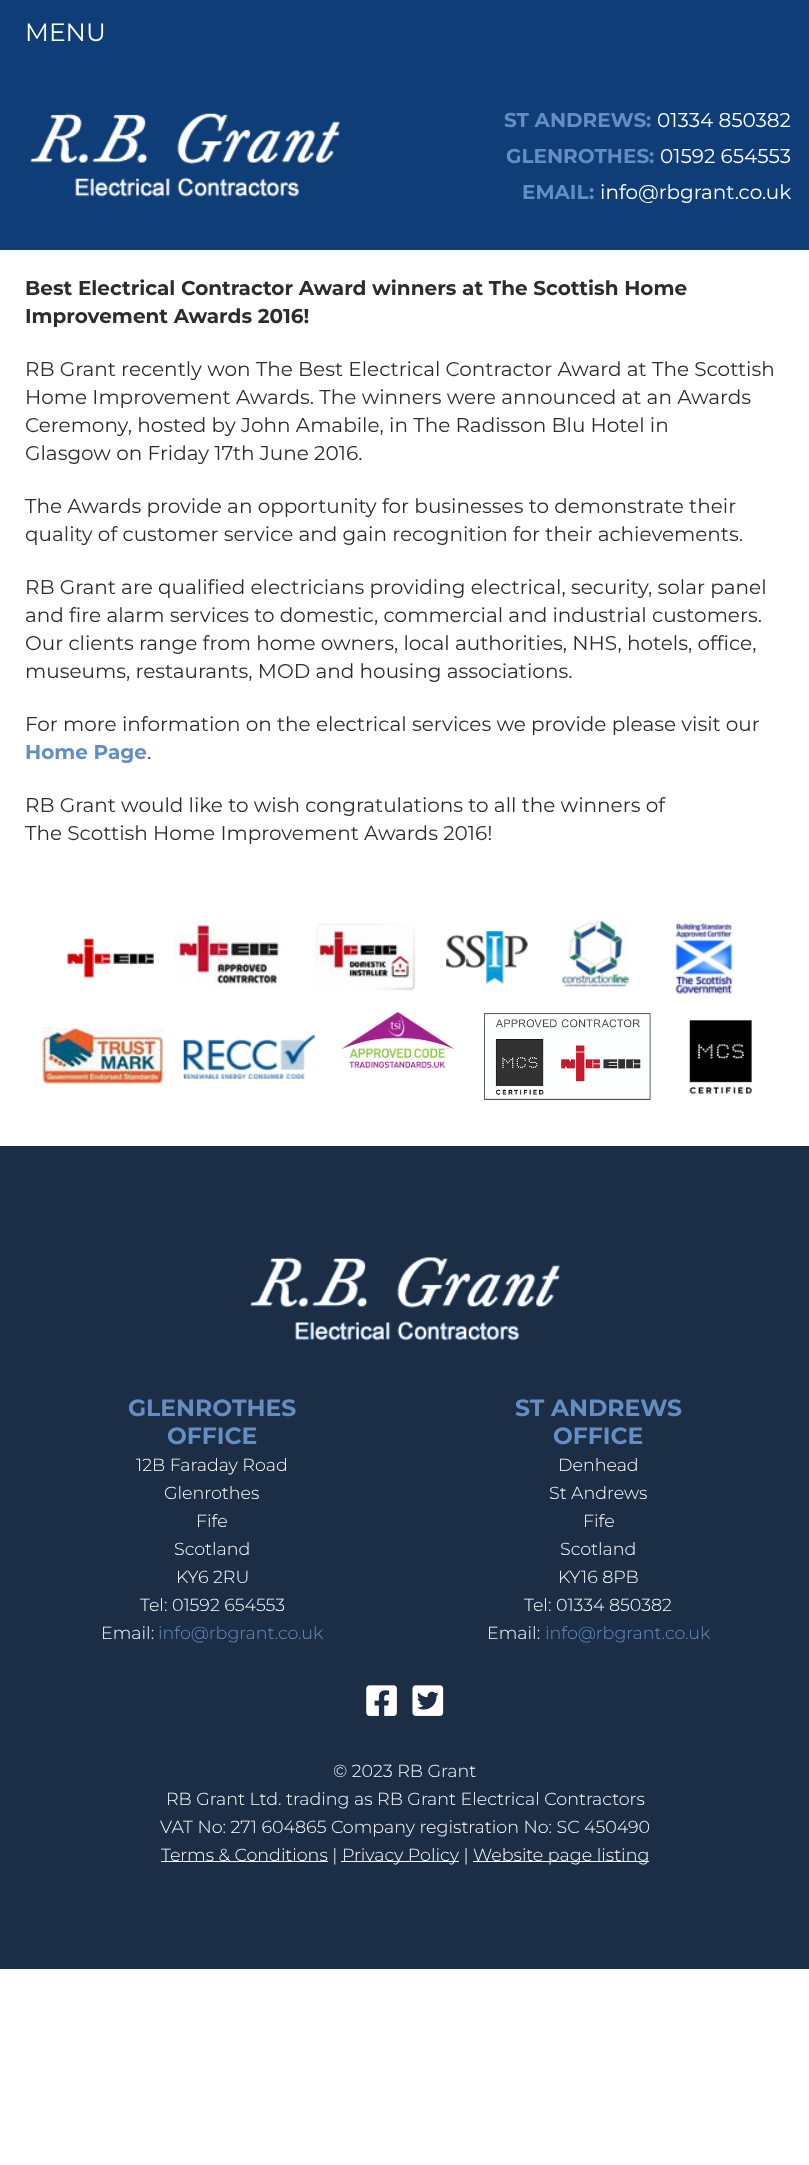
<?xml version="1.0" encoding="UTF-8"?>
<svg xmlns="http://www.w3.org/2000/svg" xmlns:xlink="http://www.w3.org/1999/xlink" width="809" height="2165">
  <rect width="100%" height="100%" fill="#ffffff" />
  <rect width="809" height="250" fill="#0f3d77" />
  <image x="30" y="113" width="311" height="84" xlink:href="image1.png" />
  <image x="67" y="938" width="87" height="40" xlink:href="image2.png" />
  <image x="174" y="917" width="107" height="69" xlink:href="image3.png" />
  <image x="314" y="923" width="102" height="68" xlink:href="image4.png" />
  <image x="446" y="931" width="82" height="53" xlink:href="image5.png" />
  <image x="559" y="918" width="75" height="70" xlink:href="image6.png" />
  <image x="675" y="923" width="58" height="75" xlink:href="image7.png" />
  <image x="42" y="1027" width="122" height="58" xlink:href="image8.png" />
  <image x="183" y="1035" width="132" height="44" xlink:href="image9.png" />
  <image x="341" y="1011" width="114" height="58" xlink:href="image10.png" />
  <image x="484" y="1013" width="167" height="88" xlink:href="image11.png" />
  <image x="689" y="1020" width="63" height="74" xlink:href="image12.png" />
  <rect y="1146" width="809" height="823" fill="#1c2e45" />
  <image x="250" y="1257" width="311" height="84" xlink:href="image13.png" />
  <image x="366" y="1685" width="31" height="31" xlink:href="image14.png" />
  <image x="412" y="1685" width="32" height="31" xlink:href="image15.png" />
  <rect x="161" y="1861" width="167" height="1" fill="#ffffff" />
  <rect x="341" y="1861" width="118" height="1" fill="#ffffff" />
  <rect x="473" y="1861" width="176" height="1" fill="#ffffff" />
  <text x="25" y="41" style="font-family: Montserrat; font-size: 25px; fill: #ffffff">MENU</text>
  <text x="504" y="127" style="font-family: Montserrat; font-size: 20px; font-weight: bold; fill: #648ec3">ST ANDREWS:</text>
  <text x="657" y="127" style="font-family: Montserrat; font-size: 20px; fill: #ffffff">01334 850382</text>
  <text x="506" y="163" style="font-family: Montserrat; font-size: 20px; font-weight: bold; fill: #648ec3">GLENROTHES:</text>
  <text x="660" y="163" style="font-family: Montserrat; font-size: 20px; fill: #ffffff">01592 654553</text>
  <text x="522" y="199" style="font-family: Montserrat; font-size: 20px; font-weight: bold; fill: #648ec3">EMAIL:</text>
  <text x="600" y="199" style="font-family: Montserrat; font-size: 20px; fill: #ffffff">info@rbgrant.co.uk</text>
  <text x="25" y="295" style="font-family: Montserrat; font-size: 20px; font-weight: bold; fill: #2d2d2d">Best Electrical Contractor Award winners at The Scottish Home</text>
  <text x="25" y="323" style="font-family: Montserrat; font-size: 20px; font-weight: bold; fill: #2d2d2d">Improvement Awards 2016!</text>
  <text x="25" y="376" style="font-family: Montserrat; font-size: 20px; fill: #2d2d2d">RB Grant recently won The Best Electrical Contractor Award at The Scottish</text>
  <text x="25" y="404" style="font-family: Montserrat; font-size: 20px; fill: #2d2d2d">Home Improvement Awards. The winners were announced at an Awards</text>
  <text x="25" y="432" style="font-family: Montserrat; font-size: 20px; fill: #2d2d2d">Ceremony, hosted by John Amabile, in The Radisson Blu Hotel in</text>
  <text x="25" y="460" style="font-family: Montserrat; font-size: 20px; fill: #2d2d2d">Glasgow on Friday 17th June 2016.</text>
  <text x="25" y="513" style="font-family: Montserrat; font-size: 20px; fill: #2d2d2d">The Awards provide an opportunity for businesses to demonstrate their</text>
  <text x="25" y="541" style="font-family: Montserrat; font-size: 20px; fill: #2d2d2d">quality of customer service and gain recognition for their achievements.</text>
  <text x="25" y="594" style="font-family: Montserrat; font-size: 20px; fill: #2d2d2d">RB Grant are qualified electricians providing electrical, security, solar panel</text>
  <text x="25" y="622" style="font-family: Montserrat; font-size: 20px; fill: #2d2d2d">and fire alarm services to domestic, commercial and industrial customers.</text>
  <text x="25" y="650" style="font-family: Montserrat; font-size: 20px; fill: #2d2d2d">Our clients range from home owners, local authorities, NHS, hotels, office,</text>
  <text x="25" y="678" style="font-family: Montserrat; font-size: 20px; fill: #2d2d2d">museums, restaurants, MOD and housing associations.</text>
  <text x="25" y="731" style="font-family: Montserrat; font-size: 20px; fill: #2d2d2d">For more information on the electrical services we provide please visit our</text>
  <text x="25" y="759" style="font-family: Montserrat; font-size: 20px; font-weight: bold; fill: #648ec3">Home Page</text>
  <text x="147" y="759" style="font-family: Montserrat; font-size: 20px; fill: #2d2d2d">.</text>
  <text x="25" y="812" style="font-family: Montserrat; font-size: 20px; fill: #2d2d2d">RB Grant would like to wish congratulations to all the winners of</text>
  <text x="25" y="840" style="font-family: Montserrat; font-size: 20px; fill: #2d2d2d">The Scottish Home Improvement Awards 2016!</text>
  <text x="128" y="1416" style="font-family: Montserrat; font-size: 23.5px; font-weight: bold; fill: #648ec3">GLENROTHES</text>
  <text x="167" y="1444" style="font-family: Montserrat; font-size: 23.5px; font-weight: bold; fill: #648ec3">OFFICE</text>
  <text x="136" y="1471" style="font-family: Montserrat; font-size: 17.5px; font-weight: 300; fill: #ffffff">12B Faraday Road</text>
  <text x="164" y="1499" style="font-family: Montserrat; font-size: 17.5px; font-weight: 300; fill: #ffffff">Glenrothes</text>
  <text x="196" y="1527" style="font-family: Montserrat; font-size: 17.5px; font-weight: 300; fill: #ffffff">Fife</text>
  <text x="174" y="1555" style="font-family: Montserrat; font-size: 17.5px; font-weight: 300; fill: #ffffff">Scotland</text>
  <text x="176" y="1583" style="font-family: Montserrat; font-size: 17.5px; font-weight: 300; fill: #ffffff">KY6 2RU</text>
  <text x="140" y="1611" style="font-family: Montserrat; font-size: 17.5px; font-weight: 300; fill: #ffffff">Tel: 01592 654553</text>
  <text x="101" y="1639" style="font-family: Montserrat; font-size: 17.5px; font-weight: 300; fill: #ffffff">Email:</text>
  <text x="158" y="1639" style="font-family: Montserrat; font-size: 17.5px; font-weight: 300; fill: #648ec3">info@rbgrant.co.uk</text>
  <text x="515" y="1416" style="font-family: Montserrat; font-size: 23.5px; font-weight: bold; fill: #648ec3">ST ANDREWS</text>
  <text x="553" y="1444" style="font-family: Montserrat; font-size: 23.5px; font-weight: bold; fill: #648ec3">OFFICE</text>
  <text x="558" y="1471" style="font-family: Montserrat; font-size: 17.5px; font-weight: 300; fill: #ffffff">Denhead</text>
  <text x="549" y="1499" style="font-family: Montserrat; font-size: 17.5px; font-weight: 300; fill: #ffffff">St Andrews</text>
  <text x="583" y="1527" style="font-family: Montserrat; font-size: 17.5px; font-weight: 300; fill: #ffffff">Fife</text>
  <text x="560" y="1555" style="font-family: Montserrat; font-size: 17.5px; font-weight: 300; fill: #ffffff">Scotland</text>
  <text x="558" y="1583" style="font-family: Montserrat; font-size: 17.5px; font-weight: 300; fill: #ffffff">KY16 8PB</text>
  <text x="524" y="1611" style="font-family: Montserrat; font-size: 17.5px; font-weight: 300; fill: #ffffff">Tel: 01334 850382</text>
  <text x="487" y="1639" style="font-family: Montserrat; font-size: 17.5px; font-weight: 300; fill: #ffffff">Email:</text>
  <text x="545" y="1639" style="font-family: Montserrat; font-size: 17.5px; font-weight: 300; fill: #648ec3">info@rbgrant.co.uk</text>
  <text x="333" y="1777" style="font-family: Montserrat; font-size: 17.5px; font-weight: 300; fill: #ffffff">© 2023 RB Grant</text>
  <text x="166" y="1805" style="font-family: Montserrat; font-size: 17.5px; font-weight: 300; fill: #ffffff">RB Grant Ltd. trading as RB Grant Electrical Contractors</text>
  <text x="160" y="1833" style="font-family: Montserrat; font-size: 17.5px; font-weight: 300; fill: #ffffff">VAT No: 271 604865 Company registration No: SC 450490</text>
  <text x="161" y="1861" style="font-family: Montserrat; font-size: 17.5px; font-weight: 300; fill: #ffffff">Terms &amp; Conditions |</text>
  <text x="342" y="1861" style="font-family: Montserrat; font-size: 17.5px; font-weight: 300; fill: #ffffff">Privacy Policy |</text>
  <text x="473" y="1861" style="font-family: Montserrat; font-size: 17.5px; font-weight: 300; fill: #ffffff">Website page listing</text>
</svg>
